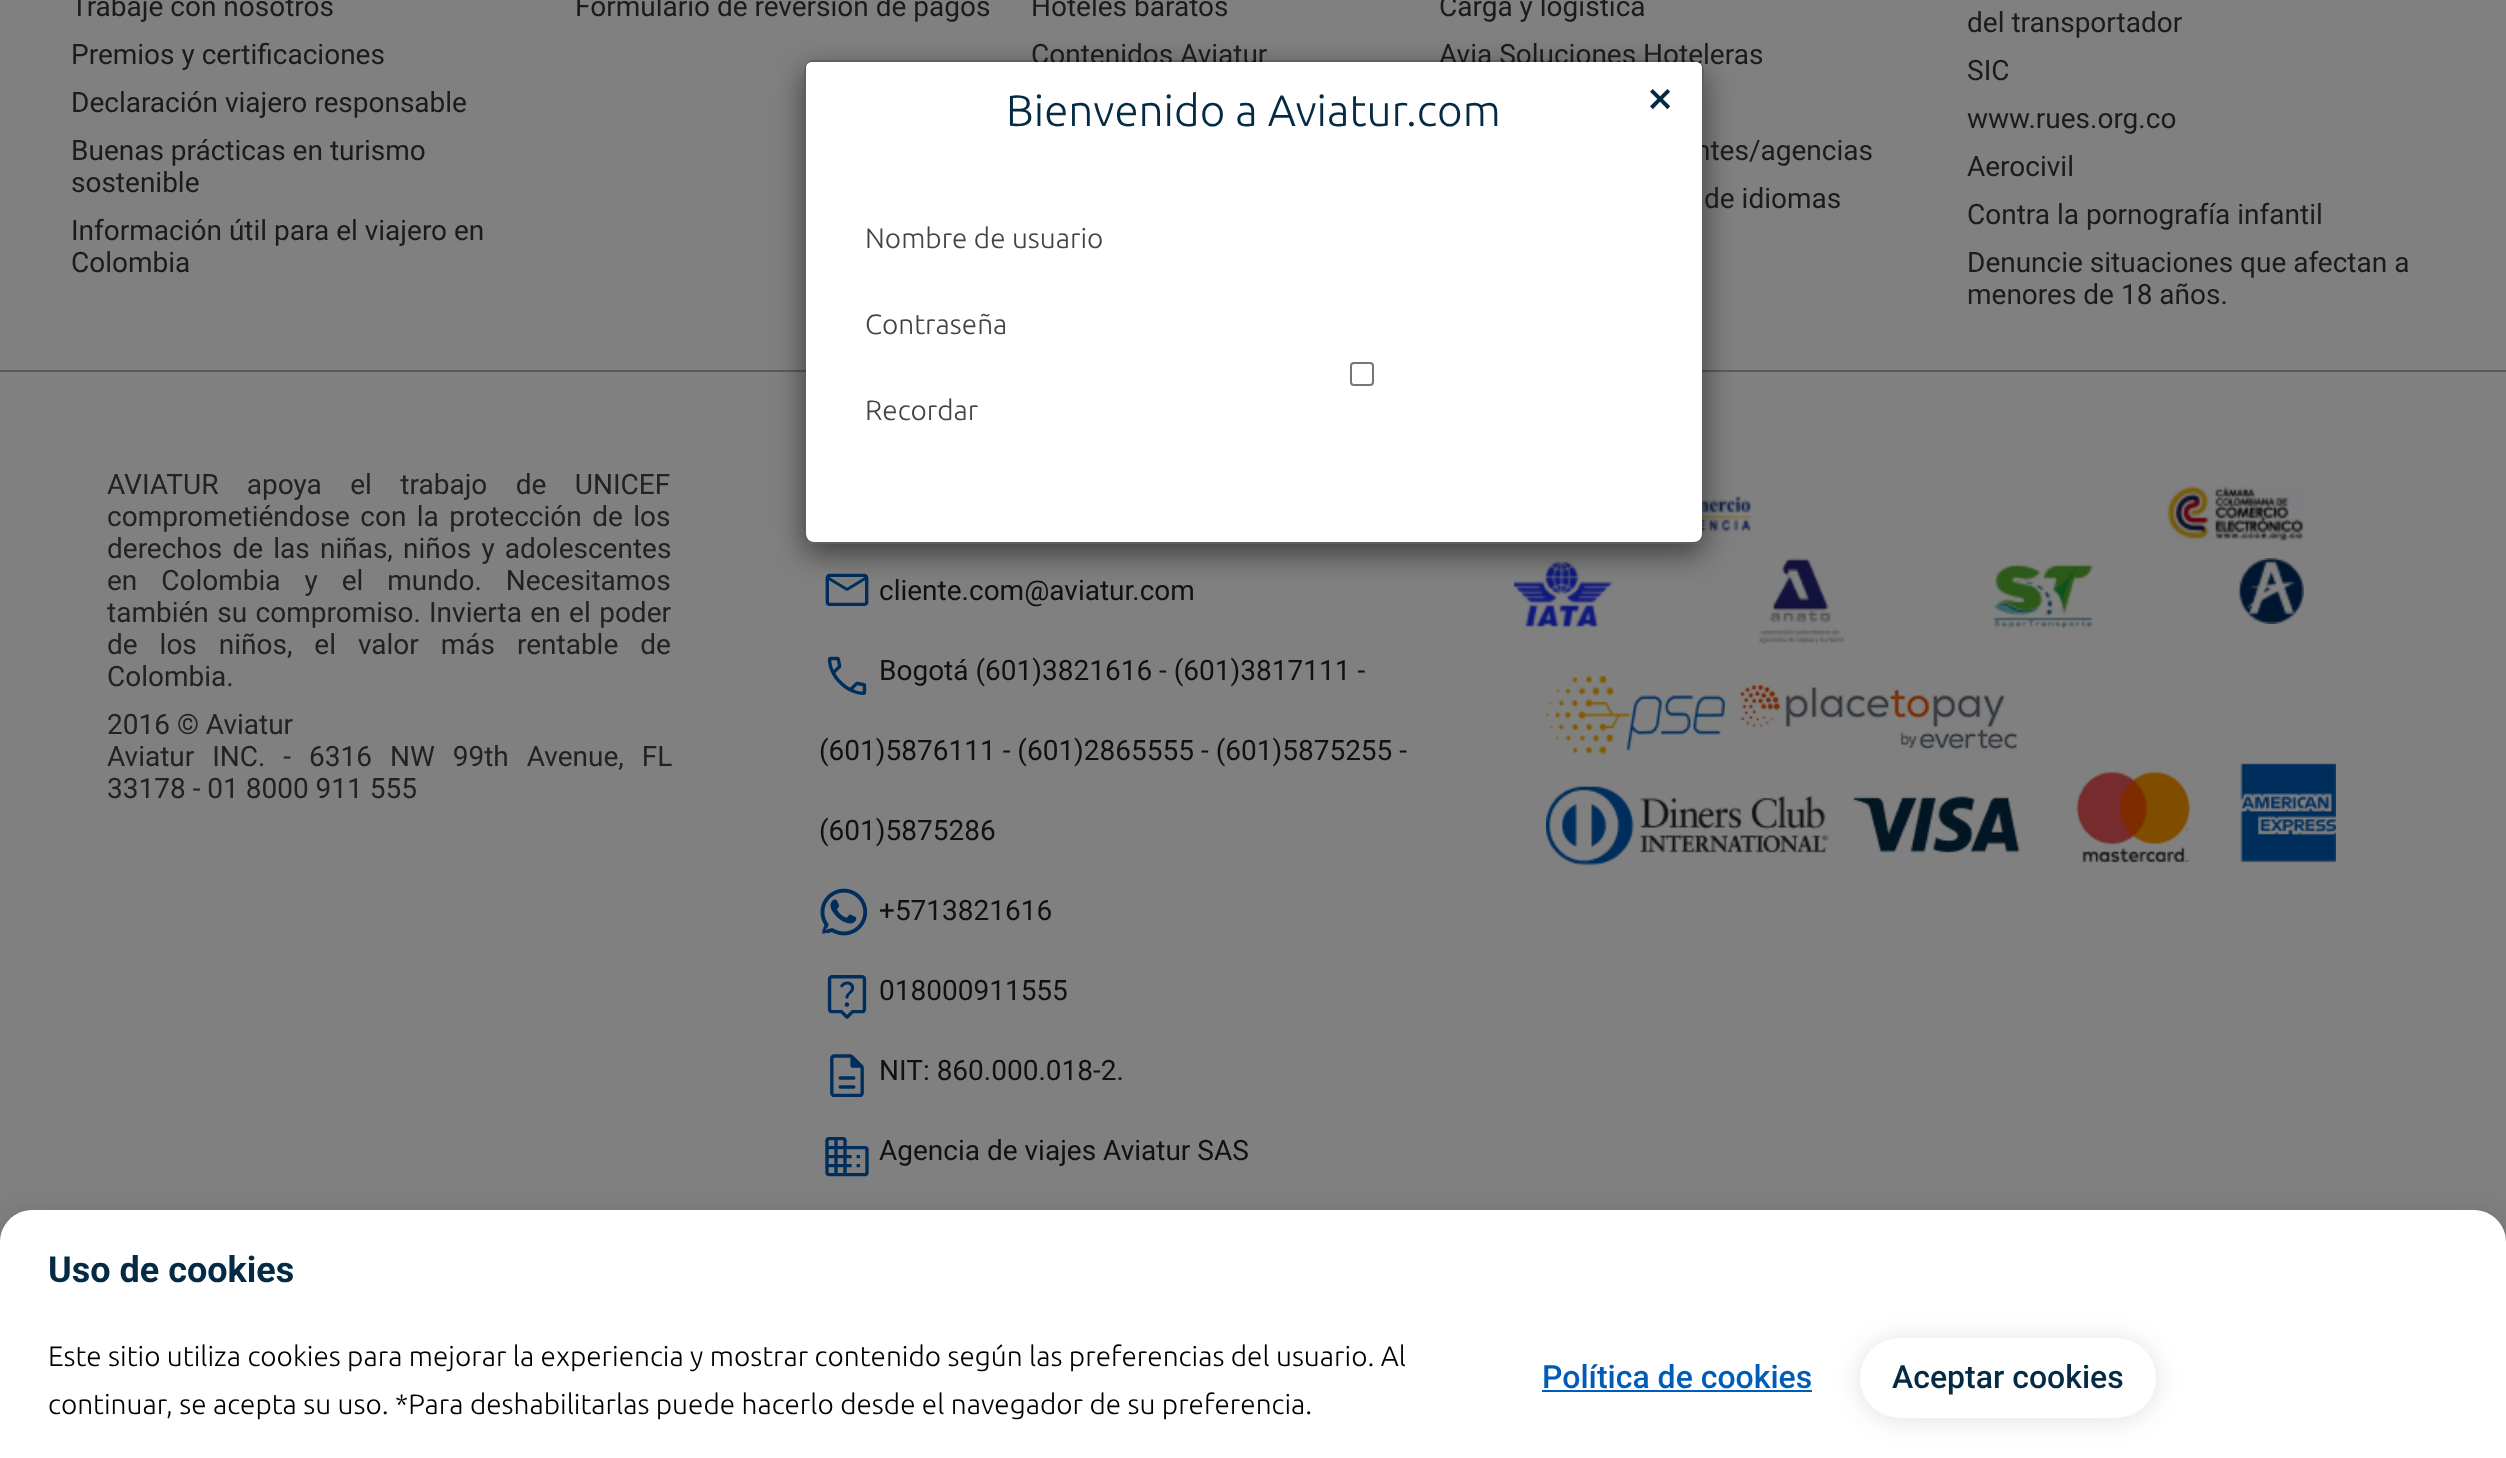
<?xml version="1.0" encoding="UTF-8"?>
<svg xmlns="http://www.w3.org/2000/svg" xmlns:xlink="http://www.w3.org/1999/xlink" width="2506" height="1458">
  <defs>
    <clipPath id="clip1"><path d="M 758 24 h 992 v 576 h -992 z m 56 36 h 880 c 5.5 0 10 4.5 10 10 v 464 c 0 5.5 -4.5 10 -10 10 h -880 c -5.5 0 -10 -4.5 -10 -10 v -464 c 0 -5.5 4.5 -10 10 -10 z" clip-rule="evenodd" /></clipPath>
  </defs>
  <rect width="100%" height="100%" fill="#808080" />
  <rect y="370" width="2506" height="2" fill="#5b5b5b" />
  <image x="825" y="573" width="44" height="33" xlink:href="image1.png" />
  <image x="827" y="656" width="40" height="39" xlink:href="image2.png" />
  <image x="820" y="888" width="48" height="48" xlink:href="image3.png" />
  <image x="827" y="975" width="40" height="44" xlink:href="image4.png" />
  <image x="830" y="1054" width="34" height="43" xlink:href="image5.png" />
  <image x="825" y="1137" width="44" height="40" xlink:href="image6.png" />
  <image x="1697" y="487" width="55" height="54" xlink:href="image7.png" />
  <image x="2167" y="486" width="138" height="55" xlink:href="image8.png" />
  <image x="1514" y="561" width="99" height="67" xlink:href="image9.png" />
  <image x="1758" y="558" width="86" height="86" xlink:href="image10.png" />
  <image x="1993" y="564" width="100" height="65" xlink:href="image11.png" />
  <image x="2238" y="558" width="66" height="66" xlink:href="image12.png" />
  <image x="1546" y="676" width="790" height="190" xlink:href="image13.png" />
  <g clip-path="url(#clip1)">
    <rect x="804" y="70" width="900" height="484" rx="10" fill="#000000" fill-opacity="0.5" filter="blur(15px)" />
  </g>
  <rect x="-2" y="1210" width="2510" height="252" rx="34" fill="#000000" fill-opacity="0.1" filter="blur(12px)" />
  <path d="M 32 1210 h 2442 c 17.5 0 32 14.5 32 32 v 216 h -2506 v -216 c 0 -17.5 14.5 -32 32 -32 z" fill="#ffffff" />
  <rect x="1542" y="1390" width="270" height="2" fill="#005cb9" />
  <rect x="1858" y="1338" width="300" height="84" rx="42" fill="#000000" fill-opacity="0.1" filter="blur(12px)" />
  <rect x="1860" y="1338" width="296" height="80" rx="40" fill="#ffffff" />
  <text x="71" y="16" style="font-family: Roboto; font-size: 28px; fill: #1b1b1b">Trabaje con nosotros</text>
  <text x="71" y="64" style="font-family: Roboto; font-size: 28px; fill: #1b1b1b">Premios y certificaciones</text>
  <text x="71" y="112" style="font-family: Roboto; font-size: 28px; fill: #1b1b1b">Declaración viajero responsable</text>
  <text x="71" y="160" style="font-family: Roboto; font-size: 28px; fill: #1b1b1b">Buenas prácticas en turismo</text>
  <text x="71" y="192" style="font-family: Roboto; font-size: 28px; fill: #1b1b1b">sostenible</text>
  <text x="71" y="240" style="font-family: Roboto; font-size: 28px; fill: #1b1b1b">Información útil para el viajero en</text>
  <text x="71" y="272" style="font-family: Roboto; font-size: 28px; fill: #1b1b1b">Colombia</text>
  <text x="575" y="16" style="font-family: Roboto; font-size: 28px; fill: #1b1b1b">Formulario de reversión de pagos</text>
  <text x="1031" y="16" style="font-family: Roboto; font-size: 28px; fill: #1b1b1b">Hoteles baratos</text>
  <text x="1031" y="64" style="font-family: Roboto; font-size: 28px; fill: #1b1b1b">Contenidos Aviatur</text>
  <text x="1439" y="16" style="font-family: Roboto; font-size: 28px; fill: #1b1b1b">Carga y logística</text>
  <text x="1439" y="64" style="font-family: Roboto; font-size: 28px; fill: #1b1b1b">Avia Soluciones Hoteleras</text>
  <text x="1695" y="160" style="font-family: Roboto; font-size: 28px; fill: #1b1b1b">ntes/agencias</text>
  <text x="1704" y="208" style="font-family: Roboto; font-size: 28px; fill: #1b1b1b">de idiomas</text>
  <text x="1967" y="32" style="font-family: Roboto; font-size: 28px; fill: #1b1b1b">del transportador</text>
  <text x="1967" y="80" style="font-family: Roboto; font-size: 28px; fill: #1b1b1b">SIC</text>
  <text x="1967" y="128" style="font-family: Roboto; font-size: 28px; fill: #1b1b1b">www.rues.org.co</text>
  <text x="1967" y="176" style="font-family: Roboto; font-size: 28px; fill: #1b1b1b">Aerocivil</text>
  <text x="1967" y="224" style="font-family: Roboto; font-size: 28px; fill: #1b1b1b">Contra la pornografía infantil</text>
  <text x="1967" y="272" style="font-family: Roboto; font-size: 28px; fill: #1b1b1b">Denuncie situaciones que afectan a</text>
  <text x="1967" y="304" style="font-family: Roboto; font-size: 28px; fill: #1b1b1b">menores de 18 años.</text>
  <text x="107" y="494" word-spacing="21.5" style="font-family: Roboto; font-size: 28px; fill: #222222">AVIATUR apoya el trabajo de UNICEF</text>
  <text x="107" y="526" word-spacing="3.5" style="font-family: Roboto; font-size: 28px; fill: #222222">comprometiéndose con la protección de los</text>
  <text x="107" y="558" word-spacing="3.25" style="font-family: Roboto; font-size: 28px; fill: #222222">derechos de las niñas, niños y adolescentes</text>
  <text x="107" y="590" word-spacing="17" style="font-family: Roboto; font-size: 28px; fill: #222222">en Colombia y el mundo. Necesitamos</text>
  <text x="107" y="622" word-spacing="1.5" style="font-family: Roboto; font-size: 28px; fill: #222222">también su compromiso.</text>
  <text x="429" y="622" word-spacing="1.5" style="font-family: Roboto; font-size: 28px; fill: #222222">Invierta en el poder</text>
  <text x="107" y="654" word-spacing="15" style="font-family: Roboto; font-size: 28px; fill: #222222">de los niños, el valor más rentable de</text>
  <text x="107" y="686" style="font-family: Roboto; font-size: 28px; fill: #222222">Colombia.</text>
  <text x="107" y="734" style="font-family: Roboto; font-size: 28px; fill: #222222">2016 © Aviatur</text>
  <text x="107" y="766" word-spacing="11" style="font-family: Roboto; font-size: 28px; fill: #222222">Aviatur INC. - 6316 NW 99th Avenue, FL</text>
  <text x="107" y="798" style="font-family: Roboto; font-size: 28px; fill: #222222">33178 - 01 8000 911 555</text>
  <text x="879" y="600" style="font-family: Roboto; font-size: 28px; fill: #111111">cliente.com@aviatur.com</text>
  <text x="879" y="680" style="font-family: Roboto; font-size: 28px; fill: #111111">Bogotá (601)3821616 - (601)3817111 -</text>
  <text x="819" y="760" style="font-family: Roboto; font-size: 28px; fill: #111111">(601)5876111 - (601)2865555 - (601)5875255 -</text>
  <text x="819" y="840" style="font-family: Roboto; font-size: 28px; fill: #111111">(601)5875286</text>
  <text x="879" y="920" style="font-family: Roboto; font-size: 28px; fill: #111111">+5713821616</text>
  <text x="879" y="1000" style="font-family: Roboto; font-size: 28px; fill: #111111">018000911555</text>
  <text x="879" y="1080" style="font-family: Roboto; font-size: 28px; fill: #111111">NIT: 860.000.018-2.</text>
  <text x="879" y="1160" style="font-family: Roboto; font-size: 28px; fill: #111111">Agencia de viajes Aviatur SAS</text>
  <rect x="806" y="62" width="896" height="480" rx="8" fill="#ffffff" />
  <rect x="805" y="61" width="898" height="482" rx="9" fill="none" stroke="#000000" stroke-opacity="0.26" stroke-width="2" />
  <path d="M 812 62 h 884 c 3.5 0 6 2.5 6 6 v 112 h -896 v -112 c 0 -3.5 2.5 -6 6 -6 z" fill="#ffffff" />
  <text x="1006" y="126" style="font-family: Ubuntu; font-size: 44px; font-weight: 300; fill: #042a44">Bienvenido a Aviatur.com</text>
  <text x="1646" y="114" style="font-family: Ubuntu; font-size: 50px; fill: #042a44">×</text>
  <text x="865" y="248" style="font-family: Ubuntu; font-size: 28px; font-weight: 300; fill: #444444">Nombre de usuario</text>
  <text x="865" y="334" style="font-family: Ubuntu; font-size: 28px; font-weight: 300; fill: #444444">Contraseña</text>
  <rect x="1351" y="363" width="22" height="22" rx="3" fill="none" stroke="#767676" stroke-width="2" />
  <text x="865" y="420" style="font-family: Ubuntu; font-size: 28px; font-weight: 300; fill: #444444">Recordar</text>
  <text x="48" y="1282" style="font-family: Roboto; font-size: 36px; font-weight: bold; fill: #042a44">Uso de cookies</text>
  <text x="48" y="1366" style="font-family: Ubuntu; font-size: 28px; font-weight: 300; fill: #000000">Este sitio utiliza cookies para mejorar la experiencia y mostrar contenido según las preferencias del usuario. Al</text>
  <text x="48" y="1414" style="font-family: Ubuntu; font-size: 28px; font-weight: 300; fill: #000000">continuar, se acepta su uso. *Para deshabilitarlas puede hacerlo desde el navegador de su preferencia.</text>
  <text x="1542" y="1388" style="font-family: Roboto; font-size: 32px; font-weight: 500; fill: #005cb9">Política de cookies</text>
  <text x="1892" y="1388" style="font-family: Roboto; font-size: 32px; font-weight: 500; fill: #042a44">Aceptar cookies</text>
</svg>
